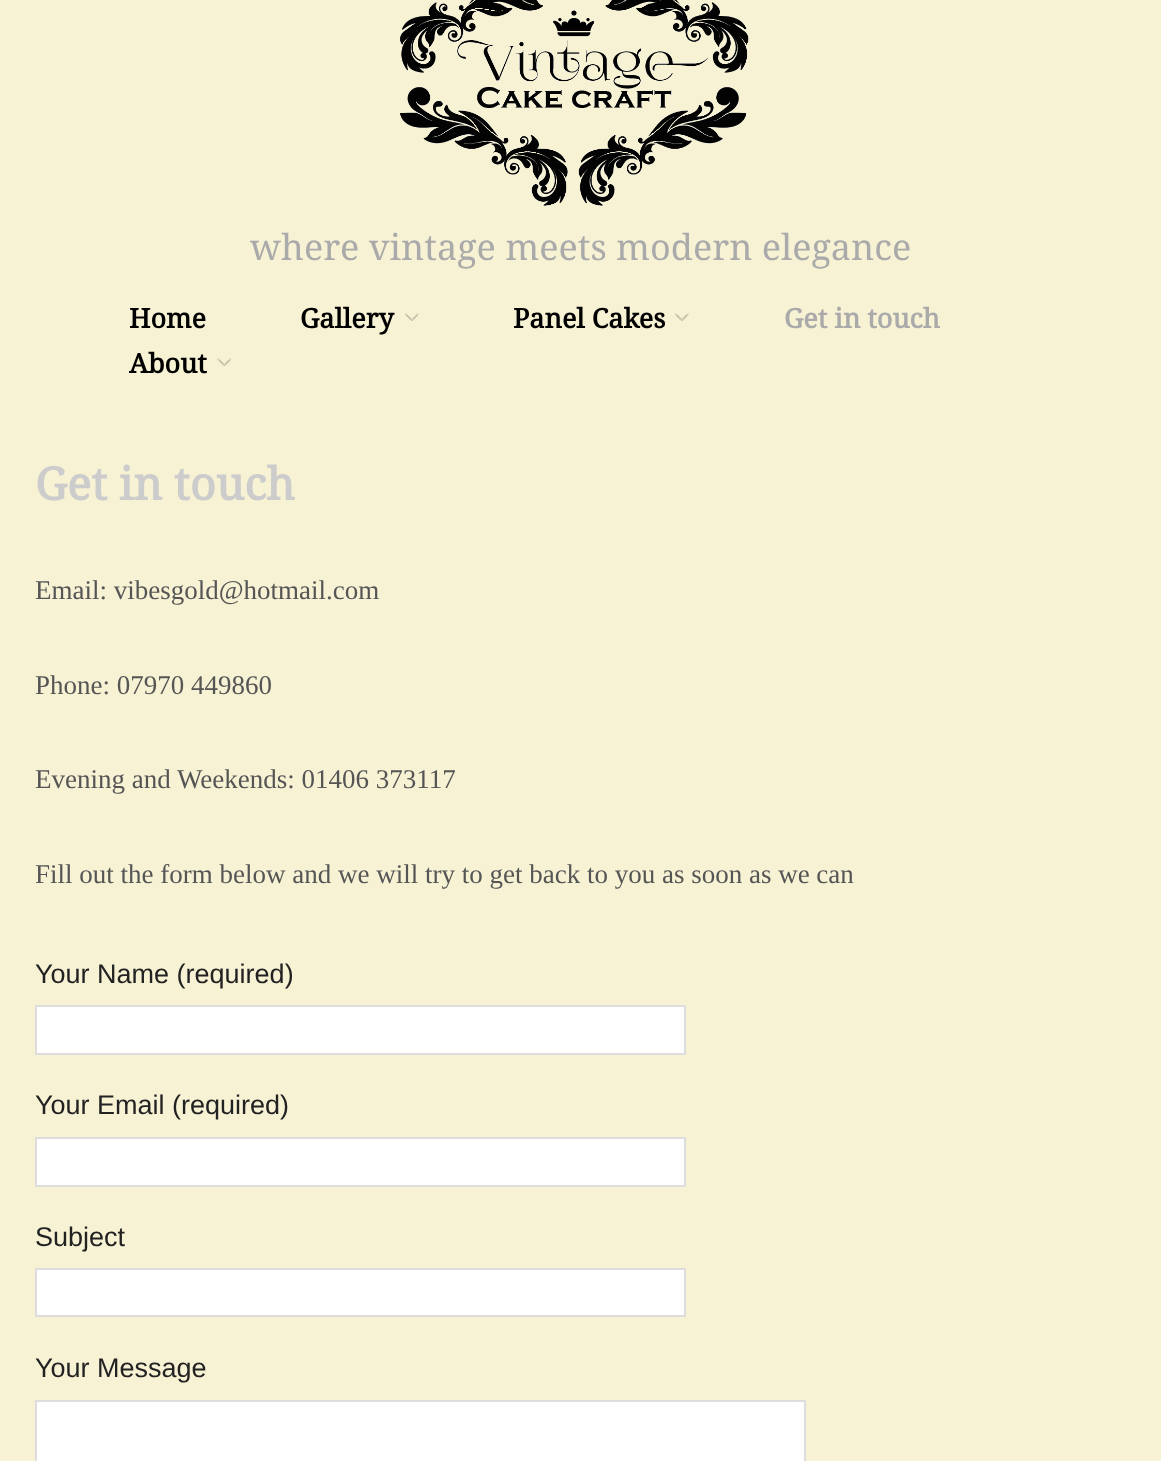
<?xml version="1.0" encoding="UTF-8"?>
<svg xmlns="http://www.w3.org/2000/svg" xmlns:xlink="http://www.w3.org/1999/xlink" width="1161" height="1461">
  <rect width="100%" height="100%" fill="#f7f2d4" />
  <image x="400" y="0" width="349" height="206" xlink:href="image1.png" />
  <image x="405" y="313" width="14" height="8" xlink:href="image2.png" />
  <image x="675" y="313" width="14" height="8" xlink:href="image3.png" />
  <image x="217" y="358" width="14" height="8" xlink:href="image4.png" />
  <rect x="36" y="1006" width="649" height="48" fill="#ffffff" stroke="#dddddd" stroke-width="2" />
  <rect x="36" y="1138" width="649" height="48" fill="#ffffff" stroke="#dddddd" stroke-width="2" />
  <rect x="36" y="1269" width="649" height="47" fill="#ffffff" stroke="#dddddd" stroke-width="2" />
  <rect x="36" y="1401" width="769" height="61" fill="#ffffff" stroke="#dddddd" stroke-width="2" />
  <text x="250" y="260" style="font-family: Droid Serif; font-size: 36px; fill: #aaaaaa">where vintage meets modern elegance</text>
  <text x="129" y="328" style="font-family: Droid Serif; font-size: 27px; font-weight: bold; fill: #000000">Home</text>
  <text x="300" y="328" style="font-family: Droid Serif; font-size: 27px; font-weight: bold; fill: #000000">Gallery</text>
  <text x="513" y="328" style="font-family: Droid Serif; font-size: 27px; font-weight: bold; fill: #000000">Panel Cakes</text>
  <text x="784" y="328" style="font-family: Droid Serif; font-size: 27px; font-weight: bold; fill: #aaaaaa">Get in touch</text>
  <text x="129" y="373" style="font-family: Droid Serif; font-size: 27px; font-weight: bold; fill: #000000">About</text>
  <text x="35" y="500" style="font-family: Droid Serif; font-size: 45px; font-weight: bold; fill: #cccccc">Get in touch</text>
  <text x="35" y="599" style="font-family: Liberation Serif; font-size: 27px; fill: #555555">Email: vibesgold@hotmail.com</text>
  <text x="35" y="694" style="font-family: Liberation Serif; font-size: 27px; fill: #555555">Phone: 07970 449860</text>
  <text x="35" y="788" style="font-family: Liberation Serif; font-size: 27px; fill: #555555">Evening and Weekends: 01406 373117</text>
  <text x="35" y="883" style="font-family: Liberation Serif; font-size: 27px; fill: #555555">Fill out the form below and we will try to get back to you as soon as we can</text>
  <text x="35" y="983" style="font-family: Liberation Sans; font-size: 27px; fill: #222222">Your Name (required)</text>
  <text x="35" y="1114" style="font-family: Liberation Sans; font-size: 27px; fill: #222222">Your Email (required)</text>
  <text x="35" y="1246" style="font-family: Liberation Sans; font-size: 27px; fill: #222222">Subject</text>
  <text x="35" y="1377" style="font-family: Liberation Sans; font-size: 27px; fill: #222222">Your Message</text>
</svg>
